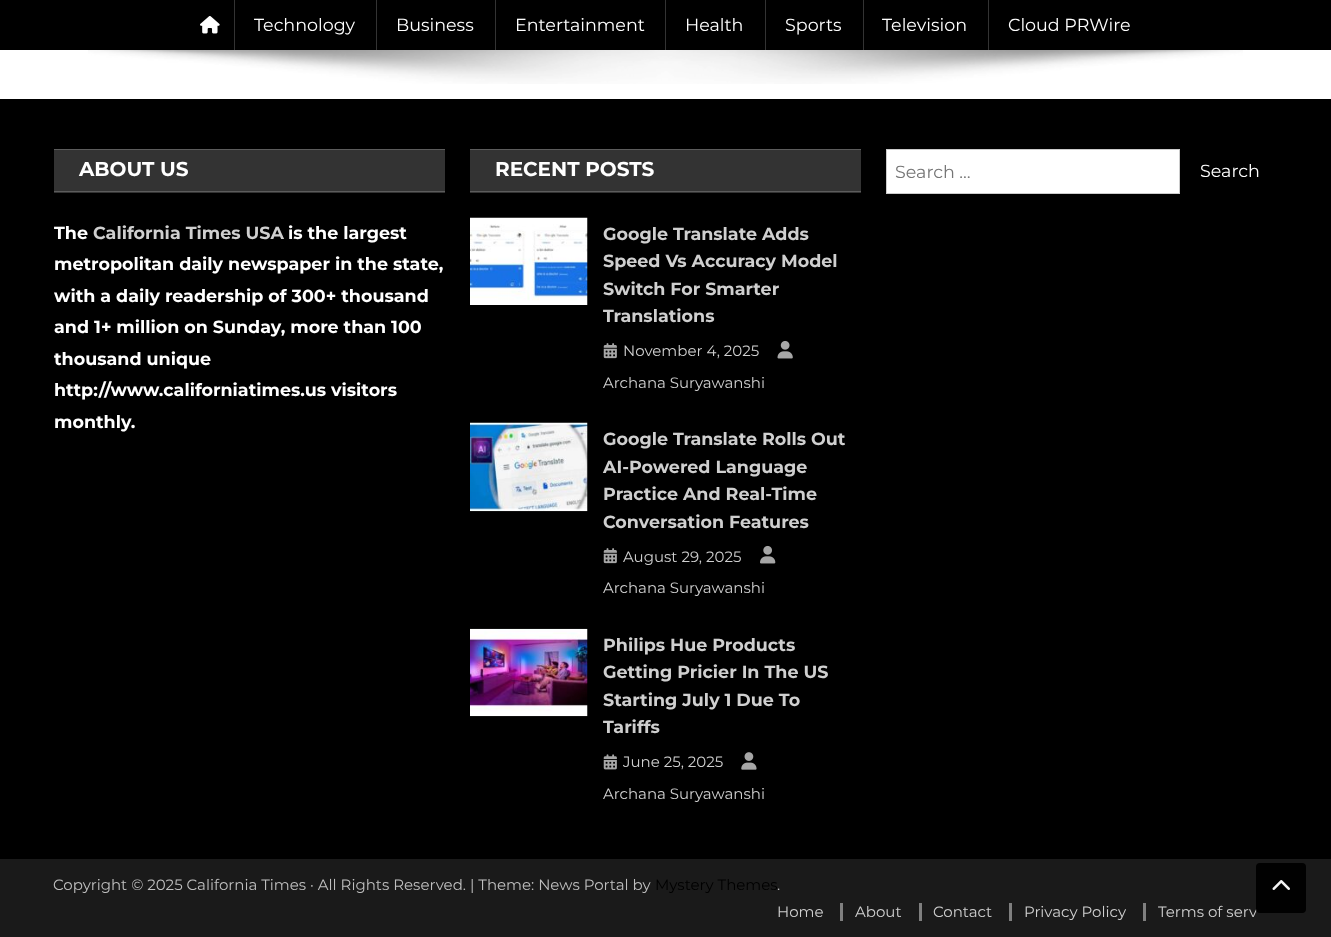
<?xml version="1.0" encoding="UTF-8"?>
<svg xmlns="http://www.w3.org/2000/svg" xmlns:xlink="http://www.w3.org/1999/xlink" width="1331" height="937">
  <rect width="100%" height="100%" fill="#ffffff" />
  <rect width="1331" height="50" fill="#000000" />
  <image x="200" y="16" width="20" height="18" xlink:href="image1.png" />
  <rect x="234" width="1" height="50" fill="#333333" />
  <rect x="376" width="1" height="50" fill="#333333" />
  <rect x="495" width="1" height="50" fill="#333333" />
  <rect x="665" width="1" height="50" fill="#333333" />
  <rect x="765" width="1" height="50" fill="#333333" />
  <rect x="863" width="1" height="50" fill="#333333" />
  <rect x="988" width="1" height="50" fill="#333333" />
  <image x="88" y="50" width="1155" height="34" xlink:href="image2.png" />
  <rect y="99" width="1331" height="760" fill="#000000" />
  <rect x="54" y="150" width="391" height="43" fill="#333333" />
  <rect x="54" y="149" width="391" height="1" fill="#5c5c5c" />
  <rect x="54" y="191" width="391" height="1" fill="#5c5c5c" />
  <rect x="470" y="150" width="391" height="43" fill="#333333" />
  <rect x="470" y="149" width="391" height="1" fill="#5c5c5c" />
  <rect x="470" y="191" width="391" height="1" fill="#5c5c5c" />
  <image x="470" y="217" width="118" height="88" xlink:href="image3.png" />
  <image x="603" y="343" width="14" height="16" xlink:href="image4.png" />
  <image x="777" y="340" width="16" height="19" xlink:href="image5.png" />
  <image x="470" y="422" width="118" height="90" xlink:href="image6.png" />
  <image x="603" y="548" width="14" height="16" xlink:href="image4.png" />
  <image x="760" y="545" width="16" height="19" xlink:href="image7.png" />
  <image x="470" y="628" width="118" height="89" xlink:href="image8.png" />
  <image x="603" y="754" width="14" height="16" xlink:href="image9.png" />
  <image x="741" y="752" width="16" height="18" xlink:href="image10.png" />
  <rect x="886.5" y="149.5" width="293" height="44" fill="#ffffff" stroke="#cccccc" />
  <rect y="859" width="1331" height="78" fill="#1a1a1a" />
  <rect x="840" y="903" width="3" height="18" fill="#7f7f7f" />
  <rect x="919" y="903" width="3" height="18" fill="#7f7f7f" />
  <rect x="1009" y="903" width="3" height="18" fill="#7f7f7f" />
  <rect x="1143" y="903" width="3" height="18" fill="#7f7f7f" />
  <text x="254" y="31" style="font-family: Montserrat; font-size: 17.5px; fill: #ffffff">Technology</text>
  <text x="396" y="31" style="font-family: Montserrat; font-size: 17.5px; fill: #ffffff">Business</text>
  <text x="515" y="31" style="font-family: Montserrat; font-size: 17.5px; fill: #ffffff">Entertainment</text>
  <text x="685" y="31" style="font-family: Montserrat; font-size: 17.5px; fill: #ffffff">Health</text>
  <text x="785" y="31" style="font-family: Montserrat; font-size: 17.5px; fill: #ffffff">Sports</text>
  <text x="882" y="31" style="font-family: Montserrat; font-size: 17.5px; fill: #ffffff">Television</text>
  <text x="1008" y="31" style="font-family: Montserrat; font-size: 17.5px; fill: #ffffff">Cloud PRWire</text>
  <text x="79" y="176" style="font-family: Montserrat; font-size: 20px; font-weight: bold; fill: #ffffff">ABOUT US</text>
  <text x="54" y="239" style="font-family: Montserrat; font-size: 17.5px; font-weight: bold; fill: #ffffff">The</text>
  <text x="93" y="239" style="font-family: Montserrat; font-size: 17.5px; font-weight: bold; fill: #cfcfcf">California Times USA</text>
  <text x="288" y="239" style="font-family: Montserrat; font-size: 17.5px; font-weight: bold; fill: #ffffff">is the largest</text>
  <text x="54" y="270" style="font-family: Montserrat; font-size: 17.5px; font-weight: bold; fill: #ffffff">metropolitan daily newspaper in the state,</text>
  <text x="54" y="302" style="font-family: Montserrat; font-size: 17.5px; font-weight: bold; fill: #ffffff">with a daily readership of 300+ thousand</text>
  <text x="54" y="333" style="font-family: Montserrat; font-size: 17.5px; font-weight: bold; fill: #ffffff">and 1+ million on Sunday, more than 100</text>
  <text x="54" y="365" style="font-family: Montserrat; font-size: 17.5px; font-weight: bold; fill: #ffffff">thousand unique</text>
  <text x="54" y="396" style="font-family: Montserrat; font-size: 17.5px; font-weight: bold; fill: #ffffff">http://www.californiatimes.us visitors</text>
  <text x="54" y="428" style="font-family: Montserrat; font-size: 17.5px; font-weight: bold; fill: #ffffff">monthly.</text>
  <text x="495" y="176" style="font-family: Montserrat; font-size: 20px; font-weight: bold; fill: #ffffff">RECENT POSTS</text>
  <text x="603" y="240" style="font-family: Montserrat; font-size: 17.5px; font-weight: bold; fill: #cfcfcf">Google Translate Adds</text>
  <text x="603" y="267" style="font-family: Montserrat; font-size: 17.5px; font-weight: bold; fill: #cfcfcf">Speed Vs Accuracy Model</text>
  <text x="603" y="295" style="font-family: Montserrat; font-size: 17.5px; font-weight: bold; fill: #cfcfcf">Switch For Smarter</text>
  <text x="603" y="322" style="font-family: Montserrat; font-size: 17.5px; font-weight: bold; fill: #cfcfcf">Translations</text>
  <text x="623" y="356" style="font-family: Montserrat; font-size: 15px; fill: #cfcfcf">November 4, 2025</text>
  <text x="603" y="388" style="font-family: Montserrat; font-size: 15px; fill: #cfcfcf">Archana Suryawanshi</text>
  <text x="603" y="445" style="font-family: Montserrat; font-size: 17.5px; font-weight: bold; fill: #cfcfcf">Google Translate Rolls Out</text>
  <text x="603" y="473" style="font-family: Montserrat; font-size: 17.5px; font-weight: bold; fill: #cfcfcf">AI-Powered Language</text>
  <text x="603" y="500" style="font-family: Montserrat; font-size: 17.5px; font-weight: bold; fill: #cfcfcf">Practice And Real-Time</text>
  <text x="603" y="528" style="font-family: Montserrat; font-size: 17.5px; font-weight: bold; fill: #cfcfcf">Conversation Features</text>
  <text x="623" y="562" style="font-family: Montserrat; font-size: 15px; fill: #cfcfcf">August 29, 2025</text>
  <text x="603" y="593" style="font-family: Montserrat; font-size: 15px; fill: #cfcfcf">Archana Suryawanshi</text>
  <text x="603" y="651" style="font-family: Montserrat; font-size: 17.5px; font-weight: bold; fill: #cfcfcf">Philips Hue Products</text>
  <text x="603" y="678" style="font-family: Montserrat; font-size: 17.5px; font-weight: bold; fill: #cfcfcf">Getting Pricier In The US</text>
  <text x="603" y="706" style="font-family: Montserrat; font-size: 17.5px; font-weight: bold; fill: #cfcfcf">Starting July 1 Due To</text>
  <text x="603" y="733" style="font-family: Montserrat; font-size: 17.5px; font-weight: bold; fill: #cfcfcf">Tariffs</text>
  <text x="623" y="767" style="font-family: Montserrat; font-size: 15px; fill: #cfcfcf">June 25, 2025</text>
  <text x="603" y="799" style="font-family: Montserrat; font-size: 15px; fill: #cfcfcf">Archana Suryawanshi</text>
  <text x="895" y="178" style="font-family: Montserrat; font-size: 17.5px; fill: #757575">Search …</text>
  <text x="1200" y="177" style="font-family: Montserrat; font-size: 17.5px; fill: #ffffff">Search</text>
  <text x="53" y="890" style="font-family: Montserrat; font-size: 15px; fill: #bfbfbf">Copyright © 2025 California Times · All Rights Reserved. | Theme: News Portal by</text>
  <text x="655" y="890" style="font-family: Montserrat; font-size: 15px; fill: #000000">Mystery Themes</text>
  <text x="777" y="890" style="font-family: Montserrat; font-size: 15px; fill: #bfbfbf">.</text>
  <text x="777" y="917" style="font-family: Montserrat; font-size: 15px; fill: #cfcfcf">Home</text>
  <text x="855" y="917" style="font-family: Montserrat; font-size: 15px; fill: #cfcfcf">About</text>
  <text x="933" y="917" style="font-family: Montserrat; font-size: 15px; fill: #cfcfcf">Contact</text>
  <text x="1024" y="917" style="font-family: Montserrat; font-size: 15px; fill: #cfcfcf">Privacy Policy</text>
  <text x="1158" y="917" style="font-family: Montserrat; font-size: 15px; fill: #cfcfcf">Terms of serv</text>
  <rect x="1256" y="863" width="50" height="50" rx="4" fill="#000000" fill-opacity="0.96" />
  <image x="1272" y="880" width="18" height="10" xlink:href="image11.png" />
</svg>
